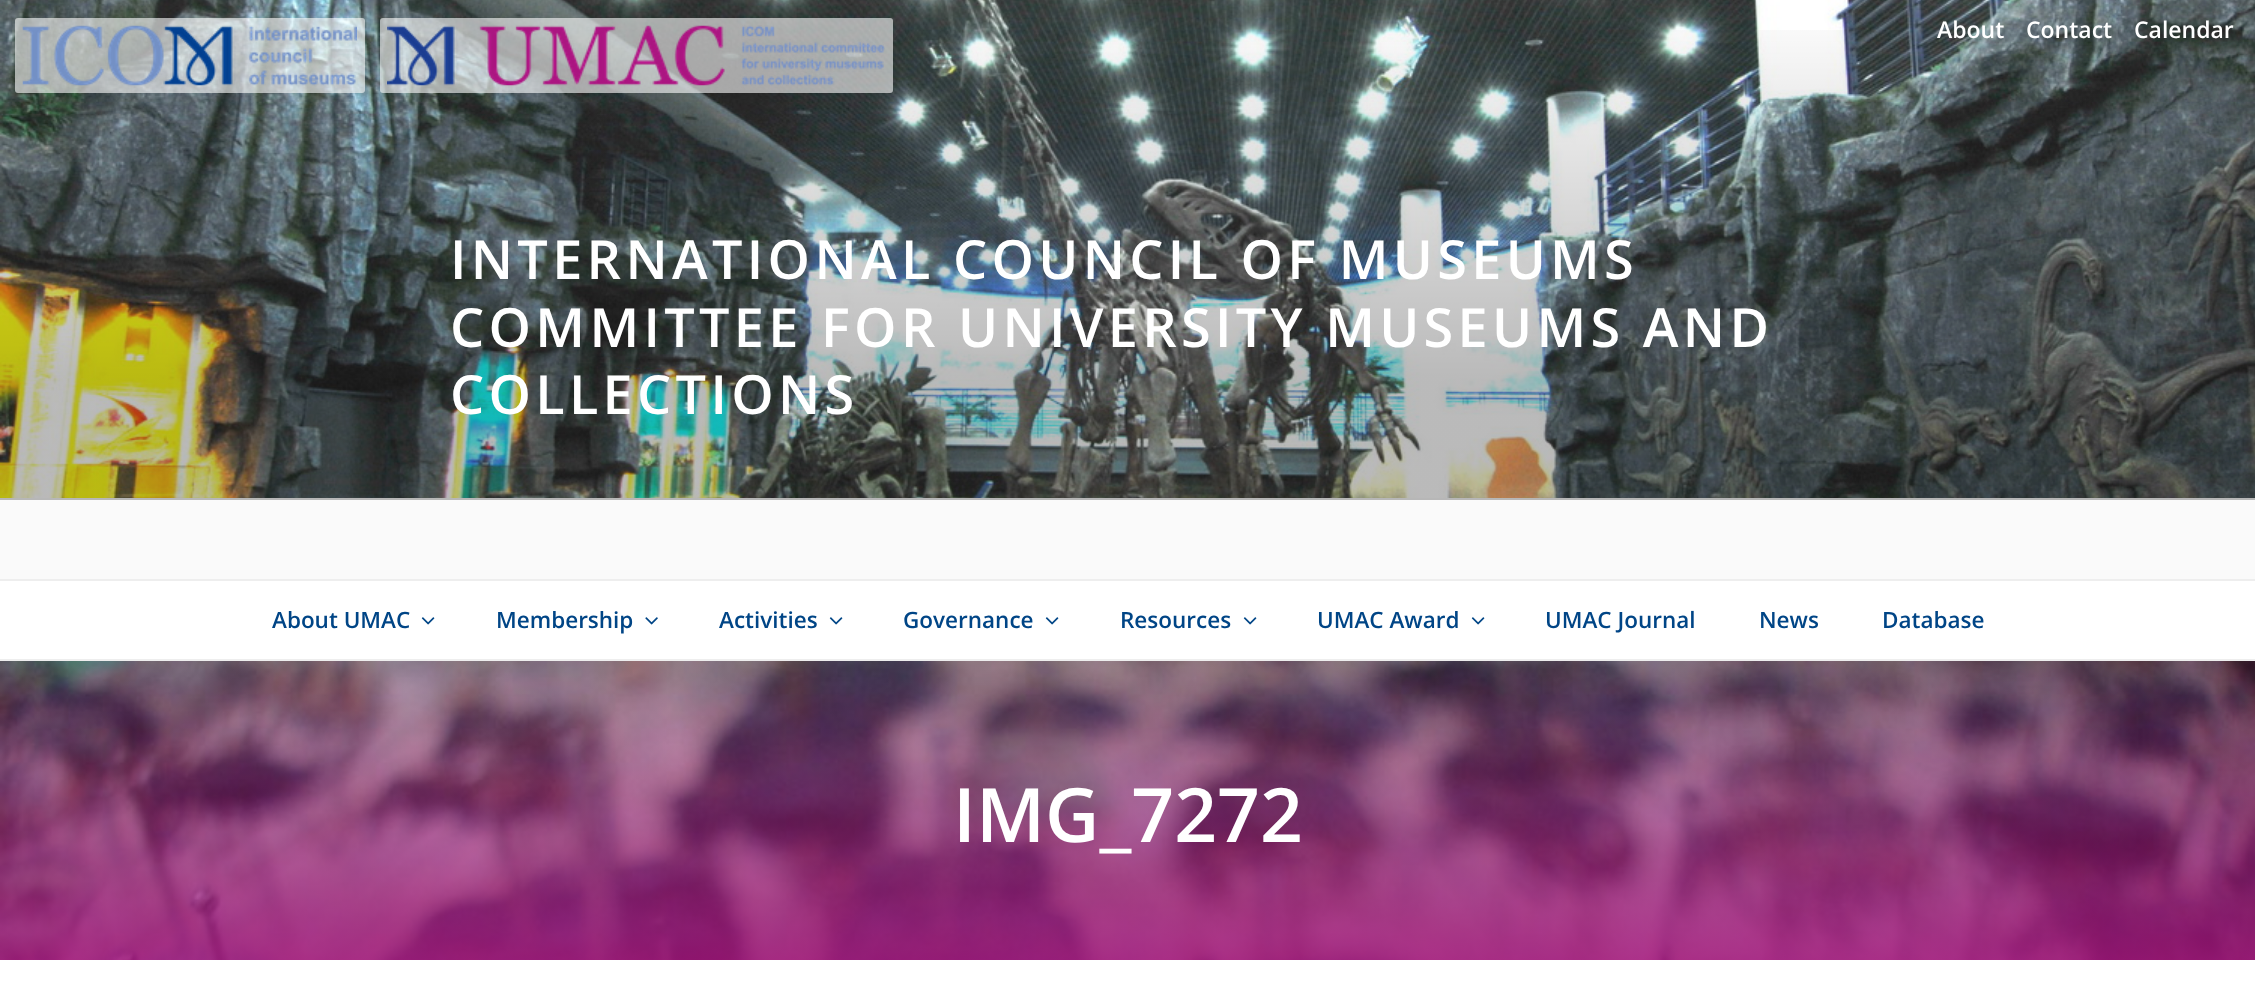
<?xml version="1.0" encoding="UTF-8"?>
<svg xmlns="http://www.w3.org/2000/svg" xmlns:xlink="http://www.w3.org/1999/xlink" width="2255" height="985">
  <defs>
    <linearGradient id="g1" gradientUnits="userSpaceOnUse" x1="1128" y1="0" x2="1128" y2="500"><stop offset="0" stop-color="#000000" stop-opacity="0" /><stop offset="0.75" stop-color="#000000" stop-opacity="0.27" /><stop offset="1" stop-color="#000000" stop-opacity="0.27" /></linearGradient>
  </defs>
  <rect width="100%" height="100%" fill="#ffffff" />
  <rect width="2255" height="579" fill="#fafafa" />
  <image x="0" y="0" width="2255" height="498" xlink:href="image3.png" />
  <rect y="30" width="2255" height="470" fill="url(#g1)" />
  <rect x="15" y="18" width="350" height="75" rx="3" fill="#ffffff" fill-opacity="0.6" />
  <rect x="380" y="18" width="513" height="75" rx="3" fill="#ffffff" fill-opacity="0.6" />
  <image x="22" y="25" width="335" height="61" xlink:href="image1.png" />
  <image x="387" y="25" width="498" height="61" xlink:href="image2.png" />
  <rect y="579" width="2255" height="2" fill="#eeeeee" />
  <rect y="659" width="2255" height="2" fill="#eeeeee" />
  <image x="421" y="617" width="14" height="8" xlink:href="image4.png" />
  <image x="645" y="617" width="13" height="8" xlink:href="image5.png" />
  <image x="829" y="617" width="14" height="8" xlink:href="image4.png" />
  <image x="1045" y="617" width="14" height="8" xlink:href="image4.png" />
  <image x="1243" y="617" width="14" height="8" xlink:href="image4.png" />
  <image x="1471" y="617" width="14" height="8" xlink:href="image4.png" />
  <image x="0" y="661" width="2255" height="299" xlink:href="image6.png" />
  <text x="1937" y="38" style="font-family: Open Sans; font-size: 23px; font-weight: 600; fill: #ffffff">About</text>
  <text x="2026" y="38" style="font-family: Open Sans; font-size: 23px; font-weight: 600; fill: #ffffff">Contact</text>
  <text x="2134" y="38" style="font-family: Open Sans; font-size: 23px; font-weight: 600; fill: #ffffff">Calendar</text>
  <text x="450" y="279" style="font-family: Open Sans; font-size: 54px; font-weight: 600; letter-spacing: 4.3px; fill: #ffffff">INTERNATIONAL COUNCIL OF MUSEUMS</text>
  <text x="450" y="347" style="font-family: Open Sans; font-size: 54px; font-weight: 600; letter-spacing: 4.3px; fill: #ffffff">COMMITTEE FOR UNIVERSITY MUSEUMS AND</text>
  <text x="450" y="414" style="font-family: Open Sans; font-size: 54px; font-weight: 600; letter-spacing: 4.3px; fill: #ffffff">COLLECTIONS</text>
  <text x="272" y="628" style="font-family: Open Sans; font-size: 22.5px; font-weight: 600; fill: #004586">About UMAC</text>
  <text x="496" y="628" style="font-family: Open Sans; font-size: 22.5px; font-weight: 600; fill: #004586">Membership</text>
  <text x="719" y="628" style="font-family: Open Sans; font-size: 22.5px; font-weight: 600; fill: #004586">Activities</text>
  <text x="903" y="628" style="font-family: Open Sans; font-size: 22.5px; font-weight: 600; fill: #004586">Governance</text>
  <text x="1120" y="628" style="font-family: Open Sans; font-size: 22.5px; font-weight: 600; fill: #004586">Resources</text>
  <text x="1317" y="628" style="font-family: Open Sans; font-size: 22.5px; font-weight: 600; fill: #004586">UMAC Award</text>
  <text x="1545" y="628" style="font-family: Open Sans; font-size: 22.5px; font-weight: 600; fill: #004586">UMAC Journal</text>
  <text x="1759" y="628" style="font-family: Open Sans; font-size: 22.5px; font-weight: 600; fill: #004586">News</text>
  <text x="1882" y="628" style="font-family: Open Sans; font-size: 22.5px; font-weight: 600; fill: #004586">Database</text>
  <text x="953" y="842" style="font-family: Open Sans; font-size: 75px; font-weight: 600; fill: #ffffff">IMG_7272</text>
</svg>
